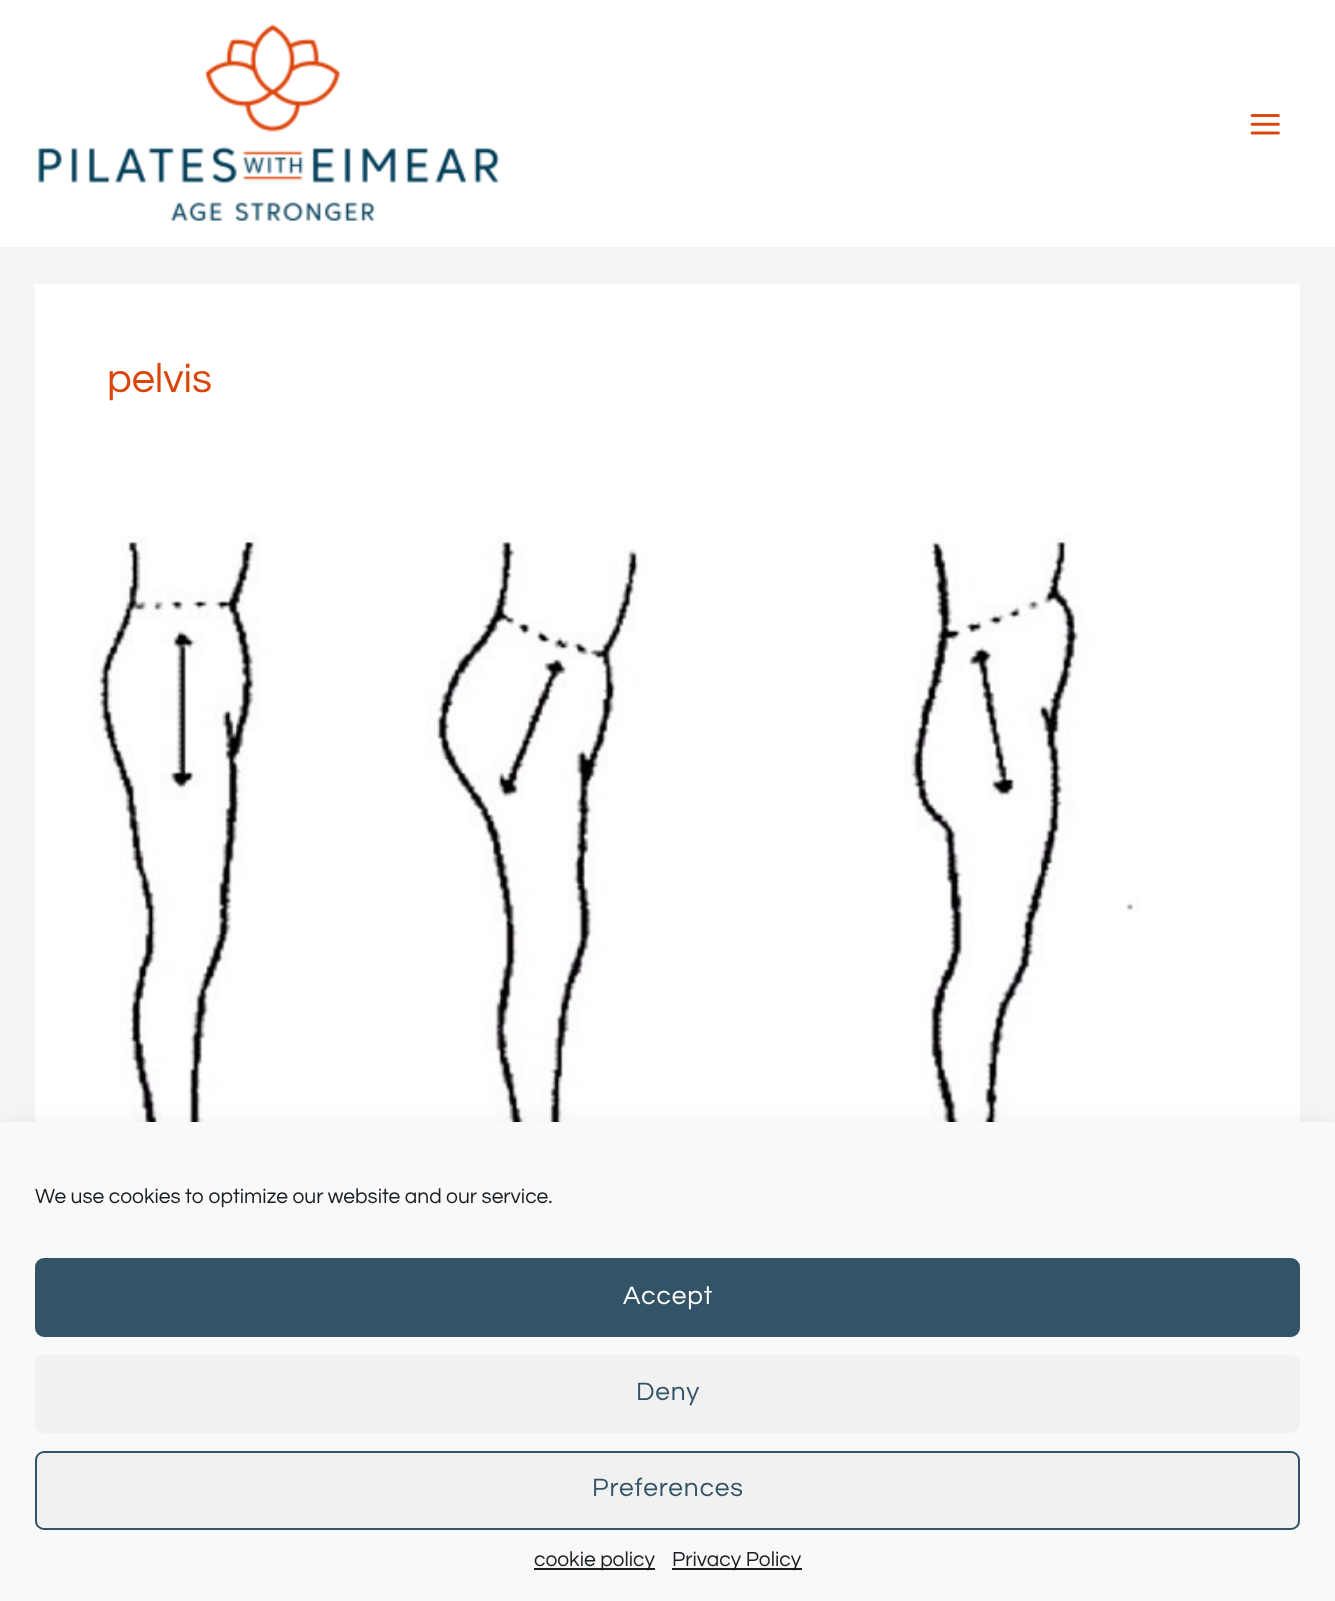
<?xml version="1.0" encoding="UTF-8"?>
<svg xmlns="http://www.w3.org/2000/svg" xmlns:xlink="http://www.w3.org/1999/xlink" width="1335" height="1601">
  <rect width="100%" height="100%" fill="#f5f5f5" />
  <rect width="1335" height="247" fill="#ffffff" />
  <image x="38" y="24" width="462" height="197" xlink:href="image1.png" />
  <image x="1250" y="114" width="30" height="21" xlink:href="image2.png" />
  <rect x="35" y="284" width="1265" height="838" fill="#ffffff" />
  <image x="77" y="534" width="1064" height="588" xlink:href="image3.png" />
  <rect y="1139" width="1335" height="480" fill="#000000" fill-opacity="0.19" filter="blur(17.5px)" />
  <rect y="1122" width="1335" height="479" fill="#f9f9f9" />
  <rect x="36" y="1259" width="1263" height="77" rx="8" fill="#335466" stroke="#335466" stroke-width="2" />
  <rect x="35" y="1355" width="1265" height="78" rx="9" fill="#f1f1f1" />
  <rect x="36" y="1452" width="1263" height="77" rx="8" fill="#f1f1f1" stroke="#335466" stroke-width="2" />
  <rect x="534" y="1568" width="121" height="2" fill="#191e23" />
  <rect x="672" y="1568" width="130" height="2" fill="#191e23" />
  <text x="107" y="392" style="font-family: Questrial; font-size: 41.5px; fill: #dc440a">pelvis</text>
  <text x="35" y="1203" style="font-family: Questrial; font-size: 21px; fill: #191e23">We use cookies to optimize our website and our service.</text>
  <text x="623" y="1304" style="font-family: Questrial; font-size: 26.25px; letter-spacing: 0.9px; fill: #ffffff">Accept</text>
  <text x="636" y="1400" style="font-family: Questrial; font-size: 26.25px; letter-spacing: 0.9px; fill: #335466">Deny</text>
  <text x="592" y="1496" style="font-family: Questrial; font-size: 26.25px; letter-spacing: 0.9px; fill: #335466">Preferences</text>
  <text x="534" y="1566" style="font-family: Questrial; font-size: 21px; fill: #191e23">cookie policy</text>
  <text x="672" y="1566" style="font-family: Questrial; font-size: 21px; fill: #191e23">Privacy Policy</text>
</svg>
